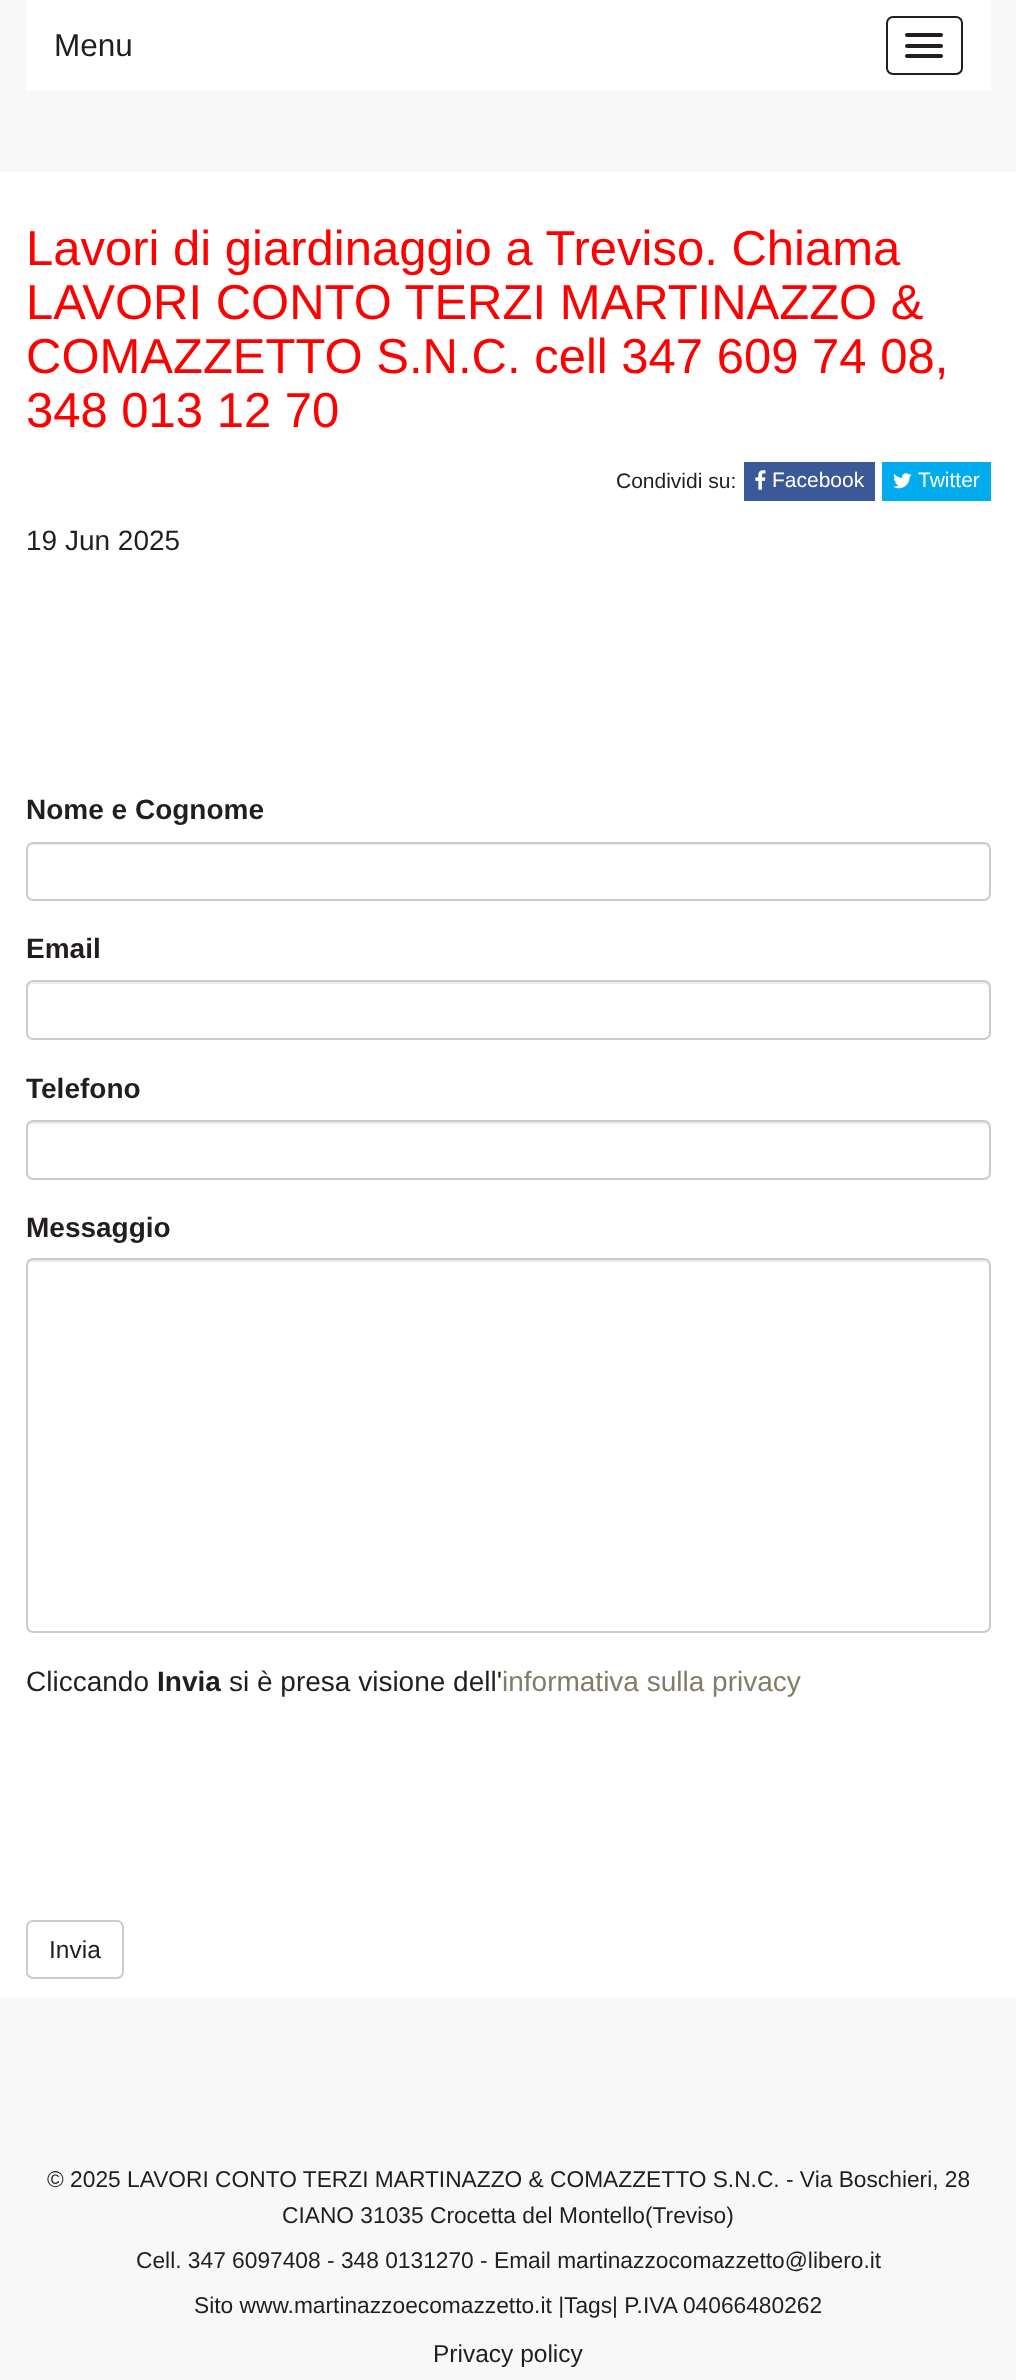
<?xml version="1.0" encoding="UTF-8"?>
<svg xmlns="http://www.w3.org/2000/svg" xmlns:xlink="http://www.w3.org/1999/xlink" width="1016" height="2380">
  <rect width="100%" height="100%" fill="#f8f8f8" />
  <rect x="26" width="965" height="91" fill="#ffffff" />
  <rect x="887" y="17" width="75" height="57" rx="6" fill="none" stroke="#221e1f" stroke-width="2" />
  <rect x="905" y="33" width="38" height="4" rx="2" fill="#221e1f" />
  <rect x="905" y="44" width="38" height="4" rx="2" fill="#221e1f" />
  <rect x="905" y="54" width="38" height="4" rx="2" fill="#221e1f" />
  <rect y="172" width="1016" height="1825" fill="#ffffff" />
  <rect x="744" y="462" width="131" height="39" fill="#3b5998" />
  <image x="755" y="470" width="11" height="20" xlink:href="image1.png" />
  <rect x="882" y="462" width="109" height="39" fill="#00acee" />
  <image x="893" y="473" width="19" height="16" xlink:href="image2.png" />
  <path d="M 33 845 h 951 c 2 0 5 3 5 5 c 0 -3 -2 -6 -5 -6 h -951 c -3 0 -5 3 -5 6 c 0 -2 2 -5 5 -5 z" fill="#ececec" />
  <rect x="27" y="843" width="963" height="57" rx="6" fill="none" stroke="#cccccc" stroke-width="2" />
  <path d="M 33 984 h 951 c 2 0 5 2 5 5 v -2 c 0 -3 -2 -5 -5 -5 h -951 c -3 0 -5 2 -5 5 v 2 c 0 -3 2 -5 5 -5 z" fill="#ececec" />
  <rect x="27" y="981" width="963" height="58" rx="6" fill="none" stroke="#cccccc" stroke-width="2" />
  <path d="M 33 1124 h 951 c 2 0 5 2 5 5 v -2 c 0 -3 -2 -5 -5 -5 h -951 c -3 0 -5 2 -5 5 v 2 c 0 -3 2 -5 5 -5 z" fill="#ececec" />
  <rect x="27" y="1121" width="963" height="58" rx="6" fill="none" stroke="#cccccc" stroke-width="2" />
  <path d="M 33 1262 h 951 c 2 0 5 2 5 5 v -2 c 0 -3 -2 -5 -5 -5 h -951 c -3 0 -5 2 -5 5 v 2 c 0 -3 2 -5 5 -5 z" fill="#ececec" />
  <rect x="27" y="1259" width="963" height="373" rx="6" fill="none" stroke="#cccccc" stroke-width="2" />
  <rect x="27" y="1921" width="96" height="57" rx="6" fill="none" stroke="#cccccc" stroke-width="2" />
  <text x="54" y="56" style="font-family: Liberation Sans; font-size: 31.5px; fill: #221e1f">Menu</text>
  <text x="26" y="265" style="font-family: Liberation Sans; font-size: 49px; fill: #ff0000">Lavori di giardinaggio a Treviso. Chiama</text>
  <text x="26" y="319" style="font-family: Liberation Sans; font-size: 49px; fill: #ff0000">LAVORI CONTO TERZI MARTINAZZO &amp;</text>
  <text x="26" y="373" style="font-family: Liberation Sans; font-size: 49px; fill: #ff0000">COMAZZETTO S.N.C. cell 347 609 74 08,</text>
  <text x="26" y="427" style="font-family: Liberation Sans; font-size: 49px; fill: #ff0000">348 013 12 70</text>
  <text x="616" y="488" style="font-family: Liberation Sans; font-size: 21px; fill: #221e1f">Condividi su:</text>
  <text x="772" y="487" style="font-family: Liberation Sans; font-size: 21px; fill: #ffffff">Facebook</text>
  <text x="918" y="487" style="font-family: Liberation Sans; font-size: 21px; fill: #ffffff">Twitter</text>
  <text x="26" y="550" style="font-family: Liberation Sans; font-size: 28px; fill: #221e1f">19 Jun 2025</text>
  <text x="26" y="819" style="font-family: Liberation Sans; font-size: 28px; font-weight: bold; fill: #221e1f">Nome e Cognome</text>
  <text x="26" y="958" style="font-family: Liberation Sans; font-size: 28px; font-weight: bold; fill: #221e1f">Email</text>
  <text x="26" y="1098" style="font-family: Liberation Sans; font-size: 28px; font-weight: bold; fill: #221e1f">Telefono</text>
  <text x="26" y="1237" style="font-family: Liberation Sans; font-size: 28px; font-weight: bold; fill: #221e1f">Messaggio</text>
  <text x="26" y="1691" style="font-family: Liberation Sans; font-size: 28px; fill: #221e1f">Cliccando</text>
  <text x="157" y="1691" style="font-family: Liberation Sans; font-size: 28px; font-weight: bold; fill: #221e1f">Invia</text>
  <text x="229" y="1691" style="font-family: Liberation Sans; font-size: 28px; fill: #221e1f">si è presa visione dell'</text>
  <text x="502" y="1691" style="font-family: Liberation Sans; font-size: 28px; fill: #807d6a">informativa sulla privacy</text>
  <text x="49" y="1958" style="font-family: Liberation Sans; font-size: 24.5px; fill: #221e1f">Invia</text>
  <text x="47" y="2187" style="font-family: Liberation Sans; font-size: 22.75px; fill: #221e1f">© 2025 LAVORI CONTO TERZI MARTINAZZO &amp; COMAZZETTO S.N.C. - Via Boschieri, 28</text>
  <text x="282" y="2223" style="font-family: Liberation Sans; font-size: 22.75px; fill: #221e1f">CIANO 31035 Crocetta del Montello(Treviso)</text>
  <text x="136" y="2268" style="font-family: Liberation Sans; font-size: 22.75px; fill: #221e1f">Cell. 347 6097408 - 348 0131270 - Email martinazzocomazzetto@libero.it</text>
  <text x="194" y="2313" style="font-family: Liberation Sans; font-size: 22.75px; fill: #221e1f">Sito www.martinazzoecomazzetto.it |Tags| P.IVA 04066480262</text>
  <text x="433" y="2362" style="font-family: Liberation Sans; font-size: 24.5px; fill: #221e1f">Privacy policy</text>
</svg>
